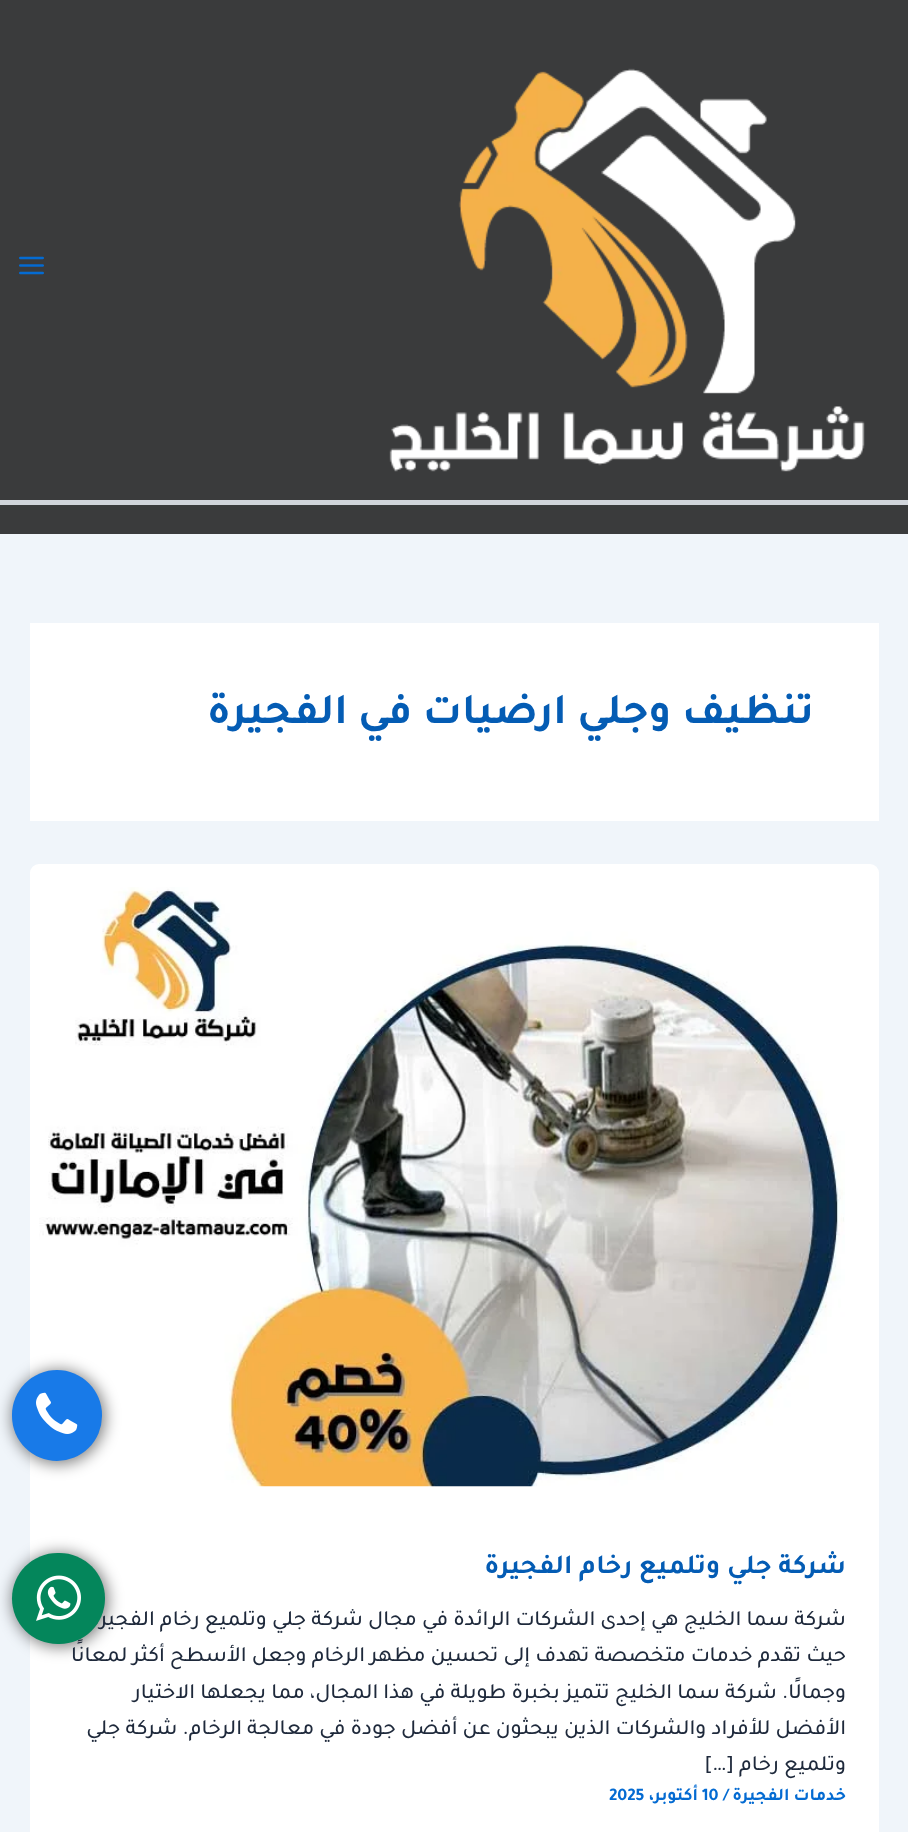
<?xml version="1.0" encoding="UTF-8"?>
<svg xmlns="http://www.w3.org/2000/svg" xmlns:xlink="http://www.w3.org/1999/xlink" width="908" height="1832">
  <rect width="100%" height="100%" fill="#f0f5fa" />
  <rect width="908" height="534" fill="#3a3b3c" />
  <rect y="500" width="908" height="5" fill="#d1d5db" />
  <image x="389" y="68" width="476" height="404" xlink:href="image1.png" />
  <image x="19" y="256" width="25" height="19" xlink:href="image2.png" />
  <rect x="30" y="623" width="849" height="198" fill="#ffffff" />
  <rect x="30" y="864" width="849" height="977" rx="9" fill="#ffffff" />
  <image x="39" y="887" width="806" height="600" xlink:href="image3.png" />
  <rect x="12" y="1370" width="93" height="94" rx="46.5" fill="#000000" fill-opacity="0.5" filter="blur(7.5px)" />
  <rect x="12" y="1370" width="90" height="91" rx="45" fill="#187ae8" />
  <image x="36" y="1392" width="42" height="42" xlink:href="image4.png" />
  <rect x="12" y="1553" width="96" height="94" rx="47" fill="#000000" fill-opacity="0.5" filter="blur(7.5px)" />
  <text x="814" y="723" style="font-family: Tajawal; font-size: 43.75px; font-weight: bold; direction: rtl; fill: #045cb4">تنظيف وجلي ارضيات في الفجيرة</text>
  <text x="846" y="1573" style="font-family: Tajawal; font-size: 27.4px; font-weight: bold; direction: rtl; fill: #045cb4">شركة جلي وتلميع رخام الفجيرة</text>
  <text x="846" y="1625" style="font-family: Tajawal; font-size: 21.9px; font-weight: 500; direction: rtl; fill: #1e293b">شركة سما الخليج هي إحدى الشركات الرائدة في مجال شركة جلي وتلميع رخام الفجيرة،</text>
  <text x="846" y="1661" style="font-family: Tajawal; font-size: 21.9px; font-weight: 500; direction: rtl; fill: #1e293b">حيث تقدم خدمات متخصصة تهدف إلى تحسين مظهر الرخام وجعل الأسطح أكثر لمعانًا</text>
  <text x="846" y="1698" style="font-family: Tajawal; font-size: 21.9px; font-weight: 500; direction: rtl; fill: #1e293b">وجمالًا. شركة سما الخليج تتميز بخبرة طويلة في هذا المجال، مما يجعلها الاختيار</text>
  <text x="846" y="1734" style="font-family: Tajawal; font-size: 21.9px; font-weight: 500; direction: rtl; fill: #1e293b">الأفضل للأفراد والشركات الذين يبحثون عن أفضل جودة في معالجة الرخام. شركة جلي</text>
  <text x="846" y="1770" style="font-family: Tajawal; font-size: 21.9px; font-weight: 500; direction: rtl; fill: #1e293b">وتلميع رخام […]</text>
  <text x="846" y="1800" style="font-family: Tajawal; font-size: 17.75px; font-weight: bold; direction: rtl; fill: #046bd2">خدمات الفجيرة</text>
  <text x="723" y="1800" style="font-family: Tajawal; font-size: 17.75px; font-weight: bold; fill: #046bd2">/</text>
  <text x="702" y="1800" style="font-family: Tajawal; font-size: 17.75px; font-weight: bold; fill: #046bd2">10</text>
  <text x="698" y="1800" style="font-family: Tajawal; font-size: 17.75px; font-weight: bold; direction: rtl; fill: #046bd2">أكتوبر،</text>
  <text x="609" y="1800" style="font-family: Tajawal; font-size: 17.75px; font-weight: bold; fill: #046bd2">2025</text>
  <rect x="12" y="1553" width="93" height="91" rx="45.5" fill="#04865b" />
  <image x="36" y="1575" width="45" height="46" xlink:href="image5.png" />
</svg>
